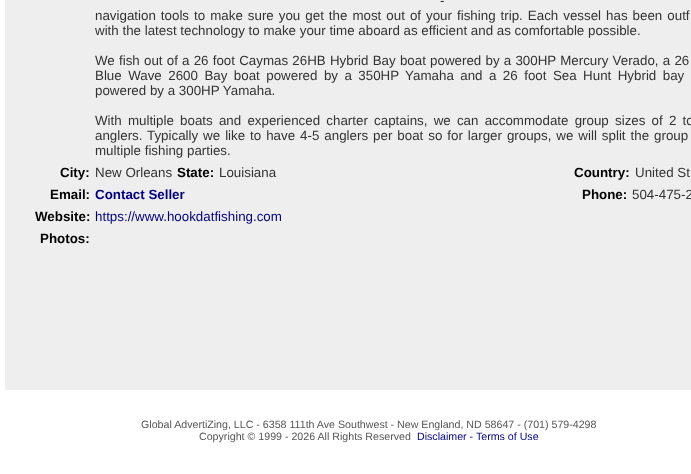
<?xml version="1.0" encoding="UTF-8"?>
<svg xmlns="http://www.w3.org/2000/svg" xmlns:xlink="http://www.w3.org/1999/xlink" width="691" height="474">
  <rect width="100%" height="100%" fill="#ffffff" />
  <rect x="5" width="686" height="390" fill="#eeeeee" />
  <text x="440" y="5" word-spacing="2" style="font-family: Liberation Sans; font-size: 13.35px; fill: #333333">-</text>
  <text x="95" y="20" word-spacing="1.3" style="font-family: Liberation Sans; font-size: 13.35px; fill: #333333">navigation tools to make sure you get the most out of your fishing trip. Each vessel has been outf</text>
  <text x="95" y="35" style="font-family: Liberation Sans; font-size: 13.35px; fill: #333333">with the latest technology to make your time aboard as efficient and as comfortable possible.</text>
  <text x="95" y="65" word-spacing="0.5" style="font-family: Liberation Sans; font-size: 13.35px; fill: #333333">We fish out of a 26 foot Caymas 26HB Hybrid Bay boat powered by a 300HP Mercury Verado, a 26</text>
  <text x="95" y="80" word-spacing="2.75" style="font-family: Liberation Sans; font-size: 13.35px; fill: #333333">Blue Wave 2600 Bay boat powered by a 350HP Yamaha and a 26 foot Sea Hunt Hybrid bay</text>
  <text x="95" y="95" style="font-family: Liberation Sans; font-size: 13.35px; fill: #333333">powered by a 300HP Yamaha.</text>
  <text x="95" y="125" word-spacing="2.5" style="font-family: Liberation Sans; font-size: 13.35px; fill: #333333">With multiple boats and experienced charter captains, we can accommodate group sizes of 2 to</text>
  <text x="95" y="140" style="font-family: Liberation Sans; font-size: 13.35px; fill: #333333">anglers.</text>
  <text x="147" y="140" word-spacing="1.25" style="font-family: Liberation Sans; font-size: 13.35px; fill: #333333">Typically we like to have 4-5 anglers per boat so for larger groups, we will split the group</text>
  <text x="95" y="155" style="font-family: Liberation Sans; font-size: 13.35px; fill: #333333">multiple fishing parties.</text>
  <text x="60" y="177" style="font-family: Liberation Sans; font-size: 13.35px; font-weight: bold; fill: #000000">City:</text>
  <text x="95" y="177" style="font-family: Liberation Sans; font-size: 13.35px; fill: #333333">New Orleans</text>
  <text x="177" y="177" style="font-family: Liberation Sans; font-size: 13.35px; font-weight: bold; fill: #000000">State:</text>
  <text x="219" y="177" style="font-family: Liberation Sans; font-size: 13.35px; fill: #333333">Louisiana</text>
  <text x="574" y="177" style="font-family: Liberation Sans; font-size: 13.35px; font-weight: bold; fill: #000000">Country:</text>
  <text x="635" y="177" style="font-family: Liberation Sans; font-size: 13.35px; fill: #333333">United St</text>
  <text x="50" y="199" style="font-family: Liberation Sans; font-size: 13.35px; font-weight: bold; fill: #000000">Email:</text>
  <text x="95" y="199" style="font-family: Liberation Sans; font-size: 13.35px; font-weight: bold; fill: #000080">Contact Seller</text>
  <text x="582" y="199" style="font-family: Liberation Sans; font-size: 13.35px; font-weight: bold; fill: #000000">Phone:</text>
  <text x="632" y="199" style="font-family: Liberation Sans; font-size: 13.35px; fill: #333333">504-475-2</text>
  <text x="35" y="221" style="font-family: Liberation Sans; font-size: 13.35px; font-weight: bold; fill: #000000">Website:</text>
  <text x="95" y="221" style="font-family: Liberation Sans; font-size: 13.35px; fill: #000080">https://www.hookdatfishing.com</text>
  <text x="40" y="243" style="font-family: Liberation Sans; font-size: 13.35px; font-weight: bold; fill: #000000">Photos:</text>
  <text x="141" y="428" style="font-family: Liberation Sans; font-size: 10.65px; fill: #555555">Global AdvertiZing, LLC - 6358 111th Ave Southwest - New England, ND 58647 - (701) 579-4298</text>
  <text x="199" y="440" style="font-family: Liberation Sans; font-size: 10.65px; fill: #555555">Copyright © 1999 - 2026 All Rights Reserved</text>
  <text x="417" y="440" style="font-family: Liberation Sans; font-size: 10.65px; fill: #000080">Disclaimer - Terms of Use</text>
</svg>
